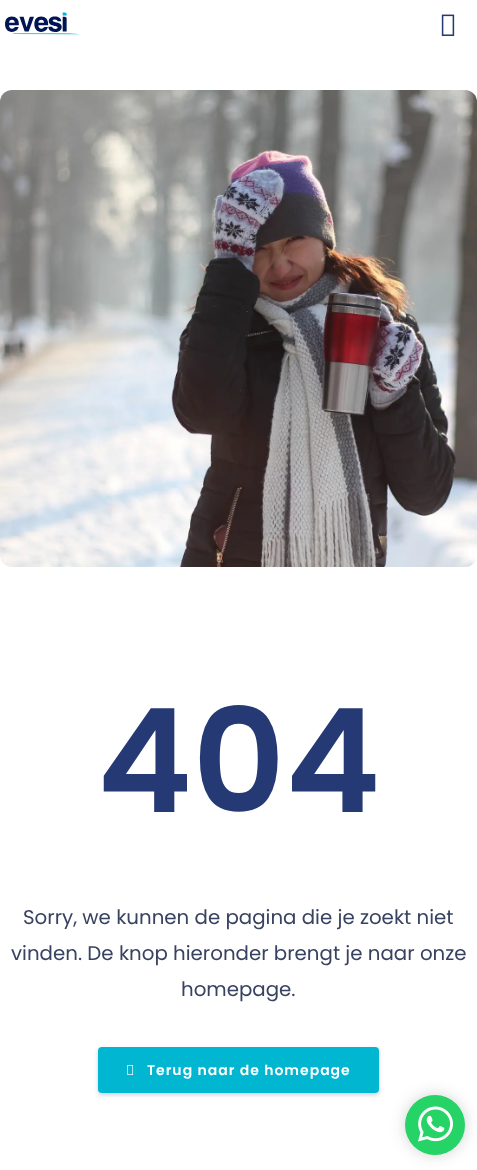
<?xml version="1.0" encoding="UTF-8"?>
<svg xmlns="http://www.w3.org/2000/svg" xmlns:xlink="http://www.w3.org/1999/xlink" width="477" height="1170">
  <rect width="100%" height="100%" fill="#ffffff" />
  <image x="5" y="12" width="74" height="23" xlink:href="image1.png" />
  <image x="441" y="14" width="14" height="22" xlink:href="image2.png" />
  <image x="0" y="90" width="477" height="477" xlink:href="image3.png" />
  <rect x="98" y="1049" width="281" height="46" rx="4" fill="#00185f" fill-opacity="0.2" filter="blur(2px)" />
  <rect x="98" y="1047" width="281" height="46" rx="4" fill="#00b6d1" />
  <image x="127" y="1065" width="7" height="10" xlink:href="image4.png" />
  <rect x="405" y="1095" width="60" height="60" rx="30" fill="#212121" fill-opacity="0.2" filter="blur(7.5px)" />
  <circle cx="435" cy="1125" r="30" fill="#25d366" />
  <image x="418" y="1106" width="35" height="36" xlink:href="image5.png" />
  <text x="97" y="812" style="font-family: Poppins; font-size: 144px; font-weight: 600; fill: #253974">404</text>
  <text x="23" y="924" style="font-family: Poppins; font-size: 19.8px; fill: #384261">Sorry, we kunnen de pagina die je zoekt niet</text>
  <text x="11" y="960" style="font-family: Poppins; font-size: 19.8px; fill: #384261">vinden. De knop hieronder brengt je naar onze</text>
  <text x="181" y="996" style="font-family: Poppins; font-size: 19.8px; fill: #384261">homepage.</text>
  <text x="147" y="1075" style="font-family: Poppins; font-size: 14px; font-weight: 600; letter-spacing: 1px; fill: #ffffff">Terug naar de homepage</text>
</svg>
